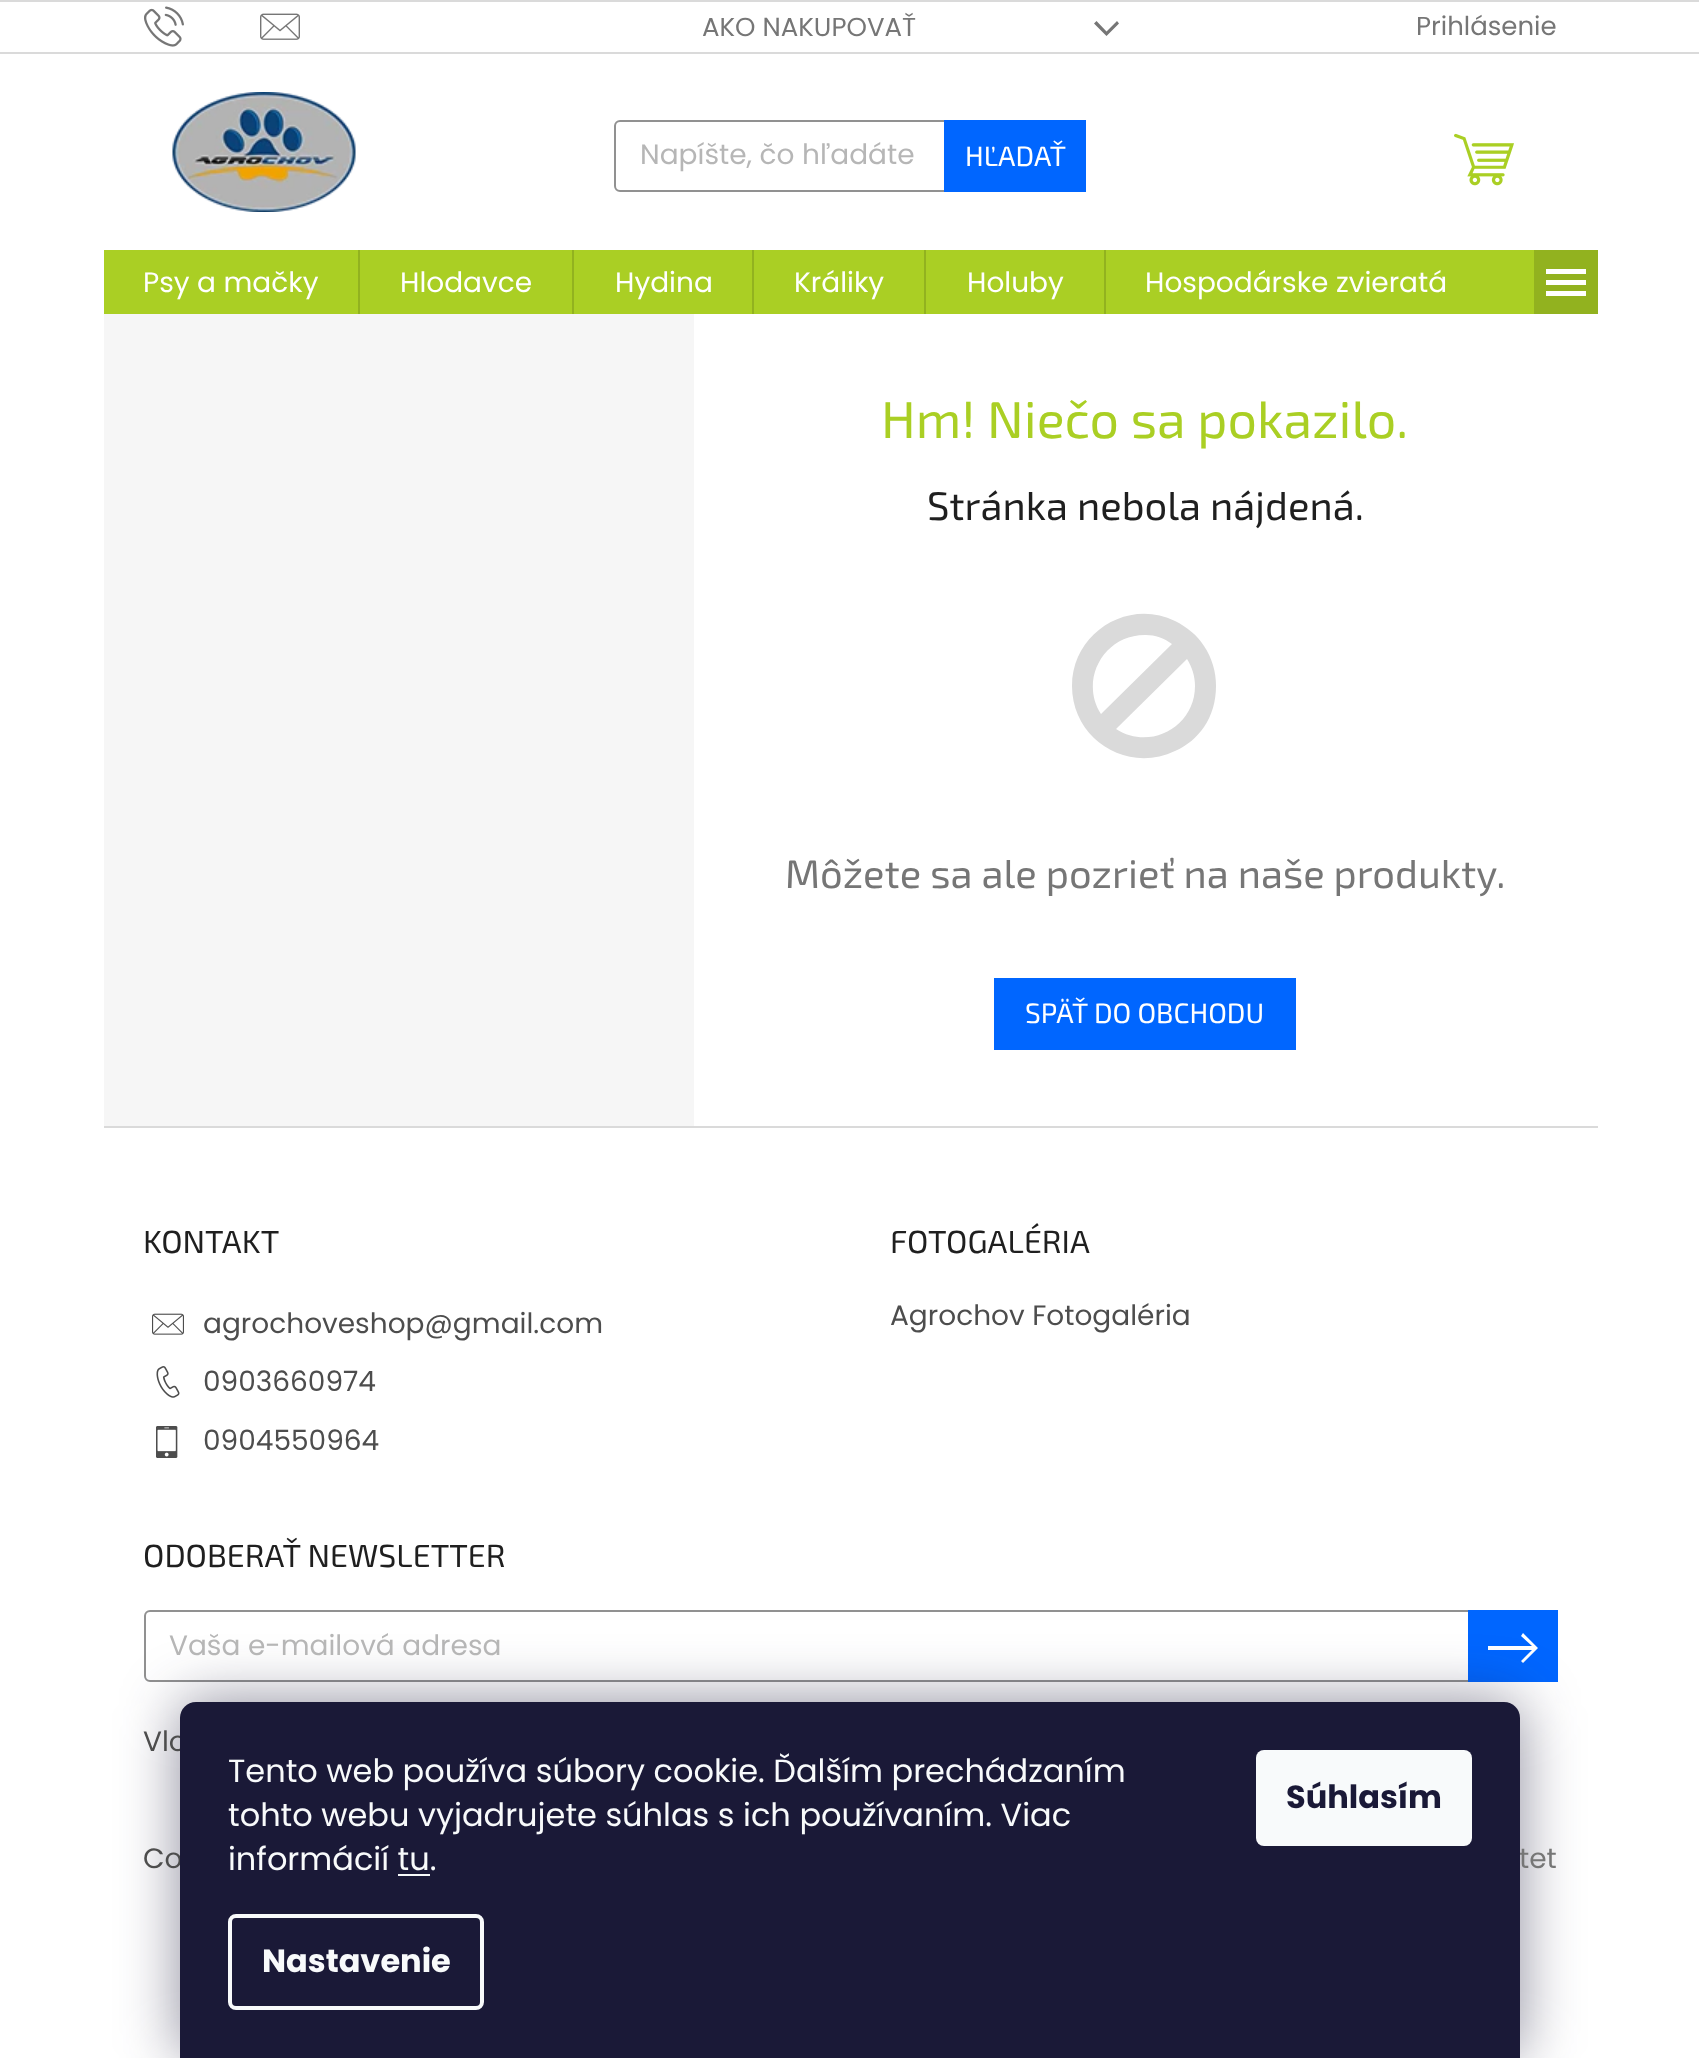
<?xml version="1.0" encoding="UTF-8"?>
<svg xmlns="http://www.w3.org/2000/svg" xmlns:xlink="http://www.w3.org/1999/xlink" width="1699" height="2058">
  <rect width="100%" height="100%" fill="#ffffff" />
  <rect width="1699" height="2" fill="#dadada" />
  <rect y="52" width="1699" height="2" fill="#dadada" />
  <image x="144" y="6" width="40" height="41" xlink:href="image1.png" />
  <image x="260" y="13" width="40" height="27" xlink:href="image2.png" />
  <path d="M 1094 23.5 l 2.5 -2.5 l 10 10.5 l 10.5 -10.5 l 2 2.5 l -12.5 12.5 z" fill="#767676" />
  <image x="172" y="92" width="184" height="120" xlink:href="image3.png" />
  <rect x="615" y="121" width="470" height="70" rx="5" fill="none" stroke="#919191" stroke-width="2" />
  <rect x="944" y="120" width="142" height="72" fill="#0066ff" />
  <image x="1454" y="133" width="60" height="53" xlink:href="image4.png" />
  <rect x="104" y="250" width="1430" height="64" fill="#aacf24" />
  <rect x="358" y="250" width="2" height="64" fill="#92b21f" />
  <rect x="572" y="250" width="2" height="64" fill="#92b21f" />
  <rect x="752" y="250" width="2" height="64" fill="#92b21f" />
  <rect x="924" y="250" width="2" height="64" fill="#92b21f" />
  <rect x="1104" y="250" width="2" height="64" fill="#92b21f" />
  <rect x="1534" y="250" width="64" height="64" fill="#92b21f" />
  <path d="M 1546 296 h 40 v -5 h -40 z m 0 -11 h 40 v -5 h -40 z m 0 -16 v 5 h 40 v -5 z" fill="#ffffff" />
  <rect x="104" y="314" width="590" height="812" fill="#f6f6f6" />
  <path d="M 1195 686 c 0 -10 -3 -19 -8 -27 l -71 70 c 34 22 79 -2 79 -43 z m -94 28 l 71 -70 c -8 -6 -17 -9 -26 -9 c -42 -1 -67 45 -45 79 z m 115 -28 c 0 15 -4 29 -12 41 c -7 10 -17 19 -29 24 c -48 23 -103 -12 -103 -65 c 0 -53 56 -88 103 -65 c 12 6 22 14 29 25 c 8 12 12 26 12 40 z" fill="#dadada" />
  <rect x="994" y="978" width="302" height="72" fill="#0066ff" />
  <rect x="104" y="1126" width="1494" height="2" fill="#dadada" />
  <image x="152" y="1313" width="32" height="22" xlink:href="image5.png" />
  <image x="156" y="1366" width="24" height="32" xlink:href="image6.png" />
  <image x="156" y="1426" width="22" height="32" xlink:href="image7.png" />
  <rect x="145" y="1611" width="1412" height="70" rx="5" fill="none" stroke="#919191" stroke-width="2" />
  <rect x="1468" y="1610" width="90" height="72" fill="#0066ff" />
  <path d="M 1523 1633 l 15 15 l -15 15 l -2 -2 l 11 -11 h -44 v -4 h 44 l -11 -10 z" fill="#ffffff" />
  <rect x="180" y="1702" width="1340" height="356" rx="16" fill="#1b1939" fill-opacity="0.5" filter="blur(30px)" />
  <text x="702" y="36" style="font-family: Poppins; font-size: 26px; fill: #767676">AKO NAKUPOVAŤ</text>
  <text x="1416" y="35" style="font-family: Poppins; font-size: 26px; fill: #767676">Prihlásenie</text>
  <text x="640" y="164" style="font-family: Poppins; font-size: 28px; fill: #b6b6b6">Napíšte, čo hľadáte</text>
  <text x="965" y="166" style="font-family: 'Exo 2'; font-size: 28px; fill: #ffffff">HĽADAŤ</text>
  <text x="143" y="292" style="font-family: Poppins; font-size: 28px; fill: #ffffff">Psy a mačky</text>
  <text x="400" y="292" style="font-family: Poppins; font-size: 28px; fill: #ffffff">Hlodavce</text>
  <text x="615" y="292" style="font-family: Poppins; font-size: 28px; fill: #ffffff">Hydina</text>
  <text x="794" y="292" style="font-family: Poppins; font-size: 28px; fill: #ffffff">Králiky</text>
  <text x="967" y="292" style="font-family: Poppins; font-size: 28px; fill: #ffffff">Holuby</text>
  <text x="1145" y="292" style="font-family: Poppins; font-size: 28px; fill: #ffffff">Hospodárske zvieratá</text>
  <text x="881" y="438" style="font-family: 'Exo 2'; font-size: 52px; fill: #aacf24">Hm! Niečo sa pokazilo.</text>
  <text x="927" y="520" style="font-family: 'Exo 2'; font-size: 40px; fill: #1f1f1f">Stránka nebola nájdená.</text>
  <text x="785" y="888" style="font-family: 'Exo 2'; font-size: 40px; fill: #767676">Môžete sa ale pozrieť na naše produkty.</text>
  <text x="1025" y="1023" style="font-family: 'Exo 2'; font-size: 28px; fill: #ffffff">SPÄŤ DO OBCHODU</text>
  <text x="143" y="1253" style="font-family: 'Exo 2'; font-size: 32px; fill: #1f1f1f">KONTAKT</text>
  <text x="203" y="1333" style="font-family: Poppins; font-size: 28px; fill: #4d4d4d">agrochoveshop@gmail.com</text>
  <text x="203" y="1391" style="font-family: Poppins; font-size: 28px; fill: #4d4d4d">0903660974</text>
  <text x="203" y="1450" style="font-family: Poppins; font-size: 28px; fill: #4d4d4d">0904550964</text>
  <text x="890" y="1253" style="font-family: 'Exo 2'; font-size: 32px; fill: #1f1f1f">FOTOGALÉRIA</text>
  <text x="890" y="1325" style="font-family: Poppins; font-size: 28px; fill: #4d4d4d">Agrochov Fotogaléria</text>
  <text x="143" y="1567" style="font-family: 'Exo 2'; font-size: 32px; fill: #1f1f1f">ODOBERAŤ NEWSLETTER</text>
  <text x="169" y="1655" style="font-family: Poppins; font-size: 28px; fill: #b6b6b6">Vaša e-mailová adresa</text>
  <text x="143" y="1751" style="font-family: Poppins; font-size: 28px; fill: #4d4d4d">Vlo</text>
  <text x="143" y="1868" style="font-family: Poppins; font-size: 28px; fill: #4d4d4d">Co</text>
  <text x="1519" y="1868" style="font-family: Poppins; font-size: 28px; fill: #767676">tet</text>
  <path d="M 196 1702 h 1308 c 9 0 16 7 16 16 v 340 h -1340 v -340 c 0 -9 7 -16 16 -16 z" fill="#1a1937" />
  <text x="228" y="1782" style="font-family: Poppins; font-size: 32px; fill: #f8fafb">Tento web používa súbory cookie. Ďalším prechádzaním</text>
  <text x="228" y="1826" style="font-family: Poppins; font-size: 32px; fill: #f8fafb">tohto webu vyjadrujete súhlas s ich používaním. Viac</text>
  <text x="228" y="1870" style="font-family: Poppins; font-size: 32px; fill: #f8fafb">informácií tu.</text>
  <rect x="398" y="1874" width="32" height="2" fill="#f8fafb" />
  <rect x="230" y="1916" width="252" height="92" rx="6" fill="none" stroke="#f8fafb" stroke-width="4" />
  <text x="262" y="1972" style="font-family: Poppins; font-size: 32px; font-weight: bold; fill: #f8fafb">Nastavenie</text>
  <rect x="1256" y="1750" width="216" height="96" rx="8" fill="#f8fafb" />
  <text x="1286" y="1808" style="font-family: Poppins; font-size: 32px; font-weight: bold; fill: #1a1937">Súhlasím</text>
</svg>
